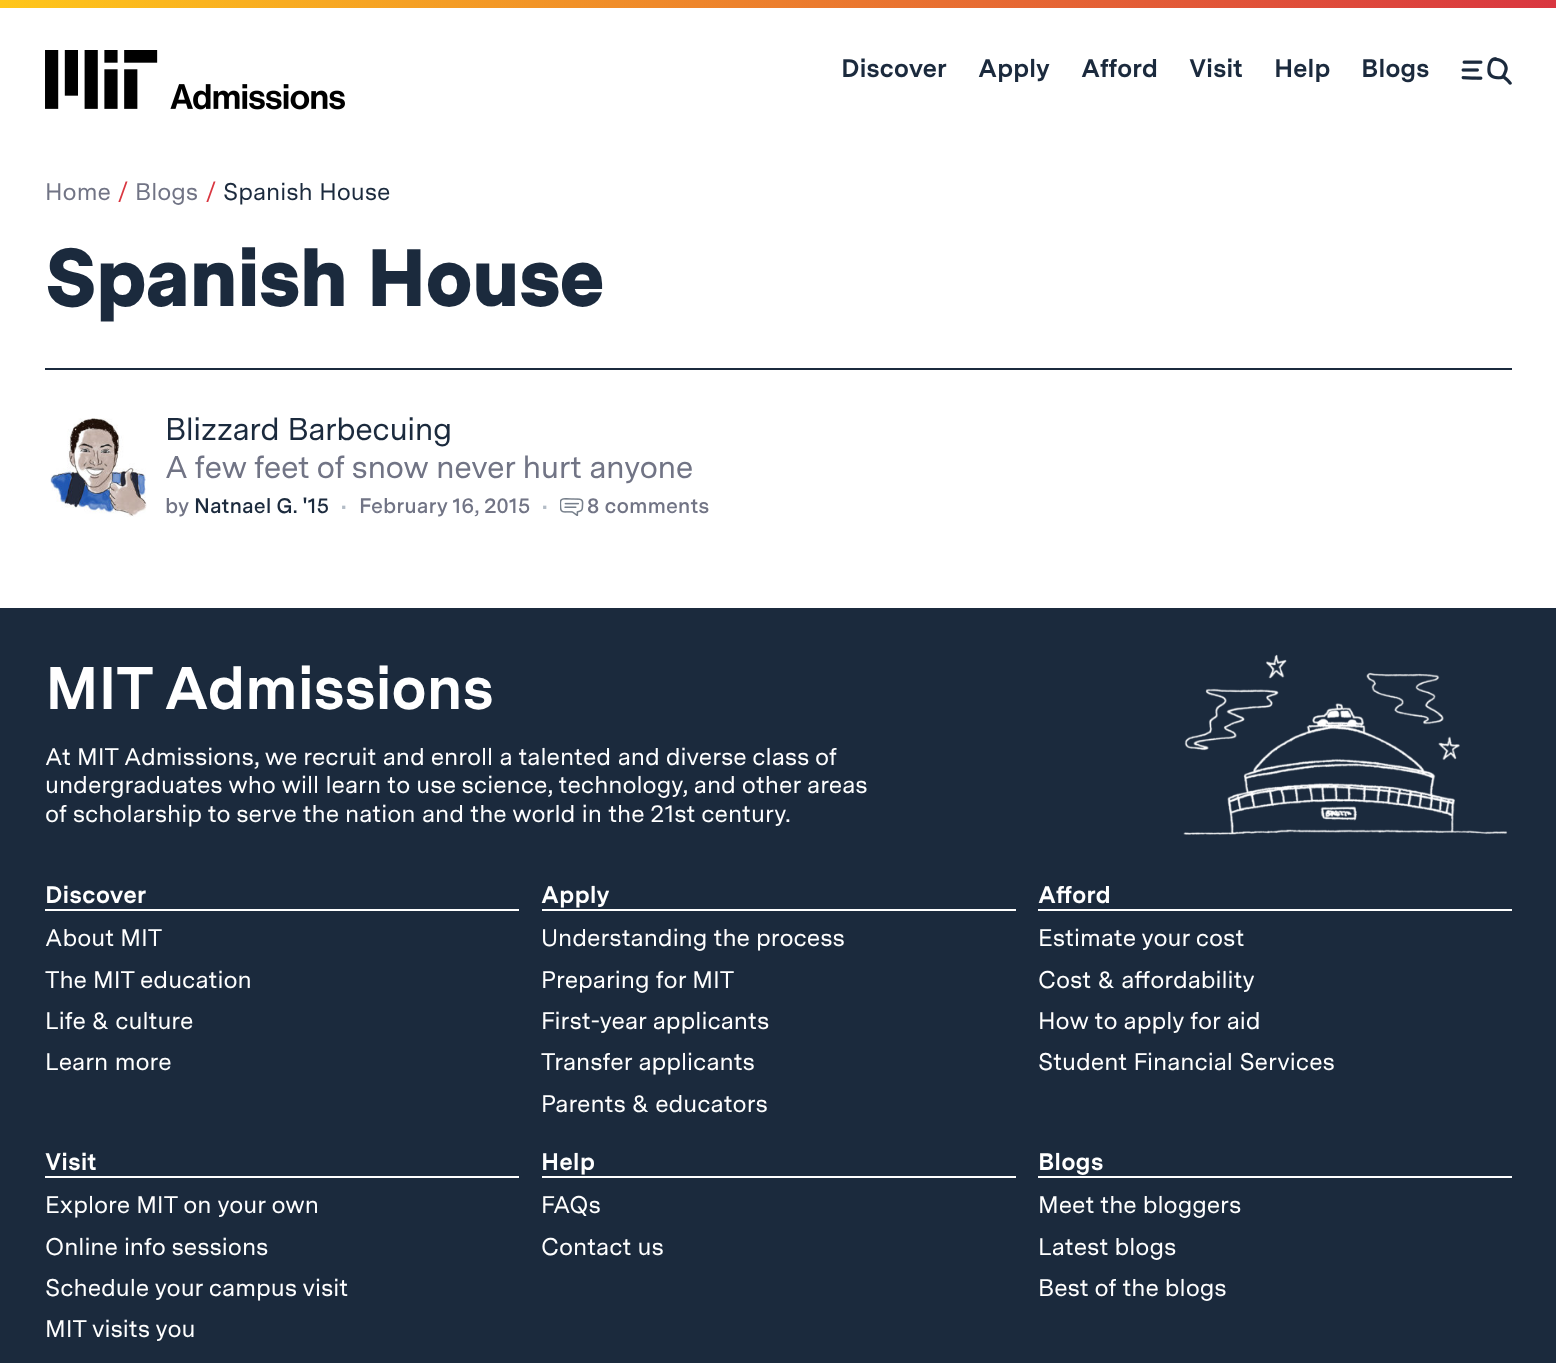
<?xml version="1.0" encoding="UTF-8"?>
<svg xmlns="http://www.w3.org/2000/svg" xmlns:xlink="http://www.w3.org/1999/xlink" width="1556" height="1363">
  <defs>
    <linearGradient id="g1" gradientUnits="userSpaceOnUse" x1="0" y1="3.8" x2="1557" y2="3.7"><stop offset="0" stop-color="#ffc61a" /><stop offset="1" stop-color="#d93640" /></linearGradient>
  </defs>
  <rect width="100%" height="100%" fill="#ffffff" />
  <rect width="1556" height="8" fill="url(#g1)" />
  <image x="45" y="50" width="300" height="60" xlink:href="image1.png" />
  <image x="1461" y="57" width="51" height="28" xlink:href="image2.png" />
  <rect x="45" y="368" width="1467" height="2" fill="#1b2a3d" />
  <image x="50" y="418" width="97" height="99" xlink:href="image3.png" />
  <image x="560" y="498" width="24" height="18" xlink:href="image4.png" />
  <rect y="608" width="1556" height="755" fill="#1b2a3d" />
  <image x="1183" y="654" width="325" height="181" xlink:href="image5.png" />
  <rect x="45" y="909" width="474" height="2" fill="#ffffff" />
  <rect x="542" y="909" width="474" height="2" fill="#ffffff" />
  <rect x="1038" y="909" width="474" height="2" fill="#ffffff" />
  <rect x="45" y="1176" width="474" height="2" fill="#ffffff" />
  <rect x="542" y="1176" width="474" height="2" fill="#ffffff" />
  <rect x="1038" y="1176" width="474" height="2" fill="#ffffff" />
  <text x="841" y="77" style="font-family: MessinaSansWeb; font-size: 25.5px; font-weight: bold; letter-spacing: -0.25px; fill: #1b2a3d">Discover</text>
  <text x="978" y="77" style="font-family: MessinaSansWeb; font-size: 25.5px; font-weight: bold; letter-spacing: -0.25px; fill: #1b2a3d">Apply</text>
  <text x="1081" y="77" style="font-family: MessinaSansWeb; font-size: 25.5px; font-weight: bold; letter-spacing: -0.25px; fill: #1b2a3d">Afford</text>
  <text x="1189" y="77" style="font-family: MessinaSansWeb; font-size: 25.5px; font-weight: bold; letter-spacing: -0.25px; fill: #1b2a3d">Visit</text>
  <text x="1274" y="77" style="font-family: MessinaSansWeb; font-size: 25.5px; font-weight: bold; letter-spacing: -0.25px; fill: #1b2a3d">Help</text>
  <text x="1361" y="77" style="font-family: MessinaSansWeb; font-size: 25.5px; font-weight: bold; letter-spacing: -0.25px; fill: #1b2a3d">Blogs</text>
  <text x="45" y="200" style="font-family: MessinaSansWeb; font-size: 24px; fill: #717485">Home</text>
  <text x="118" y="200" style="font-family: MessinaSansWeb; font-size: 24px; fill: #d93640">/</text>
  <text x="135" y="200" style="font-family: MessinaSansWeb; font-size: 24px; fill: #717485">Blogs</text>
  <text x="206" y="200" style="font-family: MessinaSansWeb; font-size: 24px; fill: #d93640">/</text>
  <text x="223" y="200" style="font-family: MessinaSansWeb; font-size: 24px; fill: #1b2a3d">Spanish House</text>
  <text x="45" y="306" style="font-family: MessinaSansWeb; font-size: 81.25px; font-weight: 900; letter-spacing: -1.1px; fill: #1b2a3d">Spanish House</text>
  <text x="165" y="440" style="font-family: MessinaSansWeb; font-size: 31.6px; letter-spacing: -0.45px; fill: #1b2a3d">Blizzard Barbecuing</text>
  <text x="165" y="478" style="font-family: MessinaSansWeb; font-size: 31.6px; letter-spacing: -0.45px; fill: #717485">A few feet of snow never hurt anyone</text>
  <text x="165" y="513" style="font-family: MessinaSansWeb; font-size: 21px; font-weight: 600; fill: #717485">by</text>
  <text x="194" y="513" style="font-family: MessinaSansWeb; font-size: 21px; font-weight: 600; fill: #1b2a3d">Natnael G. '15</text>
  <text x="341" y="513" style="font-family: MessinaSansWeb; font-size: 21px; font-weight: 600; fill: #b3bcc6">•</text>
  <text x="359" y="513" style="font-family: MessinaSansWeb; font-size: 21px; font-weight: 600; fill: #717485">February 16, 2015</text>
  <text x="542" y="513" style="font-family: MessinaSansWeb; font-size: 21px; font-weight: 600; fill: #b3bcc6">•</text>
  <text x="587" y="513" style="font-family: MessinaSansWeb; font-size: 21px; font-weight: 600; fill: #717485">8 comments</text>
  <text x="45" y="709" style="font-family: MessinaSansWeb; font-size: 60px; font-weight: bold; letter-spacing: -0.8px; fill: #ffffff">MIT Admissions</text>
  <text x="45" y="765" style="font-family: MessinaSansWeb; font-size: 24px; fill: #ffffff">At MIT Admissions, we recruit and enroll a talented and diverse class of</text>
  <text x="45" y="793" style="font-family: MessinaSansWeb; font-size: 24px; fill: #ffffff">undergraduates who will learn to use science, technology, and other areas</text>
  <text x="45" y="822" style="font-family: MessinaSansWeb; font-size: 24px; fill: #ffffff">of scholarship to serve the nation and the world in the 21st century.</text>
  <text x="45" y="903" style="font-family: MessinaSansWeb; font-size: 24px; font-weight: bold; fill: #ffffff">Discover</text>
  <text x="45" y="946" style="font-family: MessinaSansWeb; font-size: 24px; fill: #ffffff">About MIT</text>
  <text x="45" y="988" style="font-family: MessinaSansWeb; font-size: 24px; fill: #ffffff">The MIT education</text>
  <text x="45" y="1029" style="font-family: MessinaSansWeb; font-size: 24px; fill: #ffffff">Life &amp; culture</text>
  <text x="45" y="1070" style="font-family: MessinaSansWeb; font-size: 24px; fill: #ffffff">Learn more</text>
  <text x="541" y="903" style="font-family: MessinaSansWeb; font-size: 24px; font-weight: bold; fill: #ffffff">Apply</text>
  <text x="541" y="946" style="font-family: MessinaSansWeb; font-size: 24px; fill: #ffffff">Understanding the process</text>
  <text x="541" y="988" style="font-family: MessinaSansWeb; font-size: 24px; fill: #ffffff">Preparing for MIT</text>
  <text x="541" y="1029" style="font-family: MessinaSansWeb; font-size: 24px; fill: #ffffff">First-year applicants</text>
  <text x="541" y="1070" style="font-family: MessinaSansWeb; font-size: 24px; fill: #ffffff">Transfer applicants</text>
  <text x="541" y="1112" style="font-family: MessinaSansWeb; font-size: 24px; fill: #ffffff">Parents &amp; educators</text>
  <text x="1038" y="903" style="font-family: MessinaSansWeb; font-size: 24px; font-weight: bold; fill: #ffffff">Afford</text>
  <text x="1038" y="946" style="font-family: MessinaSansWeb; font-size: 24px; fill: #ffffff">Estimate your cost</text>
  <text x="1038" y="988" style="font-family: MessinaSansWeb; font-size: 24px; fill: #ffffff">Cost &amp; affordability</text>
  <text x="1038" y="1029" style="font-family: MessinaSansWeb; font-size: 24px; fill: #ffffff">How to apply for aid</text>
  <text x="1038" y="1070" style="font-family: MessinaSansWeb; font-size: 24px; fill: #ffffff">Student Financial Services</text>
  <text x="45" y="1170" style="font-family: MessinaSansWeb; font-size: 24px; font-weight: bold; fill: #ffffff">Visit</text>
  <text x="45" y="1213" style="font-family: MessinaSansWeb; font-size: 24px; fill: #ffffff">Explore MIT on your own</text>
  <text x="45" y="1255" style="font-family: MessinaSansWeb; font-size: 24px; fill: #ffffff">Online info sessions</text>
  <text x="45" y="1296" style="font-family: MessinaSansWeb; font-size: 24px; fill: #ffffff">Schedule your campus visit</text>
  <text x="45" y="1337" style="font-family: MessinaSansWeb; font-size: 24px; fill: #ffffff">MIT visits you</text>
  <text x="541" y="1170" style="font-family: MessinaSansWeb; font-size: 24px; font-weight: bold; fill: #ffffff">Help</text>
  <text x="541" y="1213" style="font-family: MessinaSansWeb; font-size: 24px; fill: #ffffff">FAQs</text>
  <text x="541" y="1255" style="font-family: MessinaSansWeb; font-size: 24px; fill: #ffffff">Contact us</text>
  <text x="1038" y="1170" style="font-family: MessinaSansWeb; font-size: 24px; font-weight: bold; fill: #ffffff">Blogs</text>
  <text x="1038" y="1213" style="font-family: MessinaSansWeb; font-size: 24px; fill: #ffffff">Meet the bloggers</text>
  <text x="1038" y="1255" style="font-family: MessinaSansWeb; font-size: 24px; fill: #ffffff">Latest blogs</text>
  <text x="1038" y="1296" style="font-family: MessinaSansWeb; font-size: 24px; fill: #ffffff">Best of the blogs</text>
</svg>
